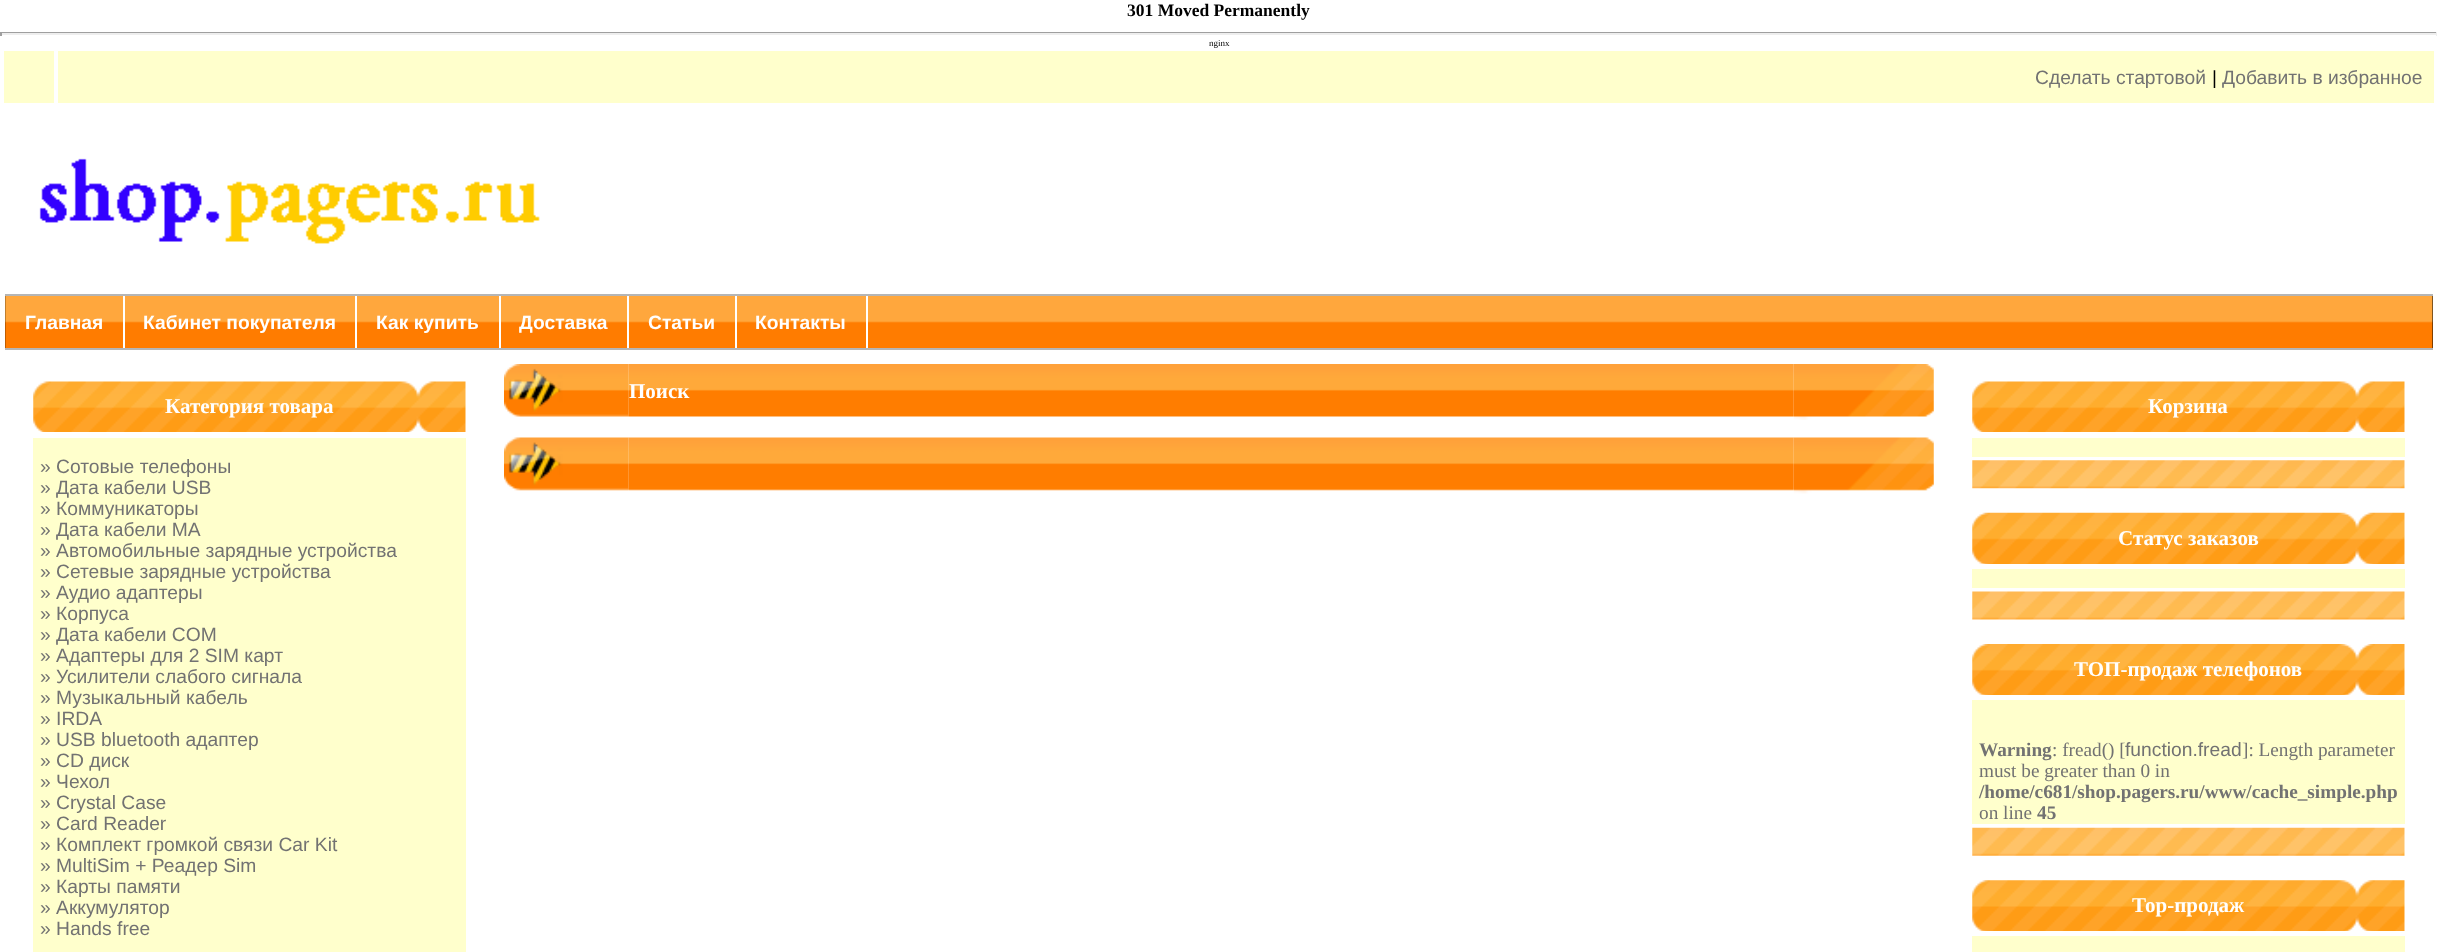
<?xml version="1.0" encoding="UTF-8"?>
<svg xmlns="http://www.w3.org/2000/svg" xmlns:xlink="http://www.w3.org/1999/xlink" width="2437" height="952">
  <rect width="100%" height="100%" fill="#ffffff" />
  <rect y="32" width="2437" height="1" fill="#9f9f9f" />
  <rect x="2436" y="32" width="1" height="4" fill="#eeeeee" />
  <rect y="33" width="2437" height="2" fill="#eeeeee" />
  <rect y="32" width="2" height="4" fill="#9f9f9f" />
  <rect x="4" y="51" width="50" height="52" fill="#ffffcc" />
  <rect x="58" y="51" width="2376" height="52" fill="#ffffcc" />
  <image x="39" y="158" width="501" height="86" xlink:href="image1.png" />
  <rect x="5" y="296" width="2428" height="52" fill="#000000" />
  <image x="5" y="296" width="2428" height="52" xlink:href="image2.png" />
  <rect x="5" y="294" width="2428" height="2" fill="#b5b5b5" />
  <rect x="5" y="348" width="2428" height="2" fill="#b5b5b5" />
  <rect x="123" y="296" width="2" height="52" fill="#ffffff" />
  <rect x="355" y="296" width="2" height="52" fill="#ffffff" />
  <rect x="499" y="296" width="2" height="52" fill="#ffffff" />
  <rect x="627" y="296" width="2" height="52" fill="#ffffff" />
  <rect x="735" y="296" width="2" height="52" fill="#ffffff" />
  <rect x="866" y="296" width="2" height="52" fill="#ffffff" />
  <image x="504" y="364" width="125" height="53" xlink:href="image3.png" />
  <image x="628" y="364" width="1166" height="53" xlink:href="image4.png" />
  <image x="1793" y="364" width="141" height="56" xlink:href="image5.png" />
  <image x="504" y="437" width="125" height="54" xlink:href="image6.png" />
  <image x="628" y="437" width="1166" height="54" xlink:href="image7.png" />
  <image x="1793" y="437" width="141" height="57" xlink:href="image8.png" />
  <image x="33" y="381" width="433" height="51" xlink:href="image9.png" />
  <rect x="33" y="438" width="433" height="514" fill="#ffffcc" />
  <image x="1972" y="381" width="433" height="51" xlink:href="image10.png" />
  <rect x="1972" y="438" width="433" height="19" fill="#ffffcc" />
  <image x="1972" y="460" width="433" height="29" xlink:href="image11.png" />
  <image x="1972" y="512" width="433" height="52" xlink:href="image12.png" />
  <rect x="1972" y="569" width="433" height="19" fill="#ffffcc" />
  <image x="1972" y="591" width="433" height="29" xlink:href="image13.png" />
  <image x="1972" y="644" width="433" height="51" xlink:href="image14.png" />
  <rect x="1972" y="700" width="433" height="124" fill="#ffffcc" />
  <image x="1972" y="827" width="433" height="29" xlink:href="image15.png" />
  <image x="1972" y="880" width="433" height="51" xlink:href="image16.png" />
  <rect x="1972" y="936" width="433" height="16" fill="#ffffcc" />
  <text x="1127" y="16" style="font-family: Liberation Serif; font-size: 17.5px; font-weight: bold; fill: #000000">301 Moved Permanently</text>
  <text x="1209" y="46" style="font-family: Liberation Serif; font-size: 9px; fill: #000000">nginx</text>
  <text x="2035" y="84" style="font-family: Liberation Sans; font-size: 19.25px; fill: #727272">Сделать стартовой</text>
  <text x="2212" y="84" style="font-family: Liberation Sans; font-size: 19px; fill: #000000">|</text>
  <text x="2222" y="84" style="font-family: Liberation Sans; font-size: 19.25px; fill: #727272">Добавить в избранное</text>
  <text x="25" y="329" style="font-family: Liberation Sans; font-size: 19.25px; font-weight: bold; fill: #ffffff">Главная</text>
  <text x="143" y="329" style="font-family: Liberation Sans; font-size: 19.25px; font-weight: bold; fill: #ffffff">Кабинет покупателя</text>
  <text x="376" y="329" style="font-family: Liberation Sans; font-size: 19.25px; font-weight: bold; fill: #ffffff">Как купить</text>
  <text x="519" y="329" style="font-family: Liberation Sans; font-size: 19.25px; font-weight: bold; fill: #ffffff">Доставка</text>
  <text x="648" y="329" style="font-family: Liberation Sans; font-size: 19.25px; font-weight: bold; fill: #ffffff">Статьи</text>
  <text x="755" y="329" style="font-family: Liberation Sans; font-size: 19.25px; font-weight: bold; fill: #ffffff">Контакты</text>
  <text x="629" y="398" style="font-family: Liberation Serif; font-size: 21px; font-weight: bold; fill: #ffffff">Поиск</text>
  <text x="165" y="413" style="font-family: Liberation Serif; font-size: 21px; font-weight: bold; fill: #ffffff">Категория товара</text>
  <text x="40" y="473" style="font-family: Liberation Sans; font-size: 19.25px; fill: #727272">» Сотовые телефоны</text>
  <text x="40" y="494" style="font-family: Liberation Sans; font-size: 19.25px; fill: #727272">» Дата кабели USB</text>
  <text x="40" y="515" style="font-family: Liberation Sans; font-size: 19.25px; fill: #727272">» Коммуникаторы</text>
  <text x="40" y="536" style="font-family: Liberation Sans; font-size: 19.25px; fill: #727272">» Дата кабели MA</text>
  <text x="40" y="557" style="font-family: Liberation Sans; font-size: 19.25px; fill: #727272">» Автомобильные зарядные устройства</text>
  <text x="40" y="578" style="font-family: Liberation Sans; font-size: 19.25px; fill: #727272">» Сетевые зарядные устройства</text>
  <text x="40" y="599" style="font-family: Liberation Sans; font-size: 19.25px; fill: #727272">» Аудио адаптеры</text>
  <text x="40" y="620" style="font-family: Liberation Sans; font-size: 19.25px; fill: #727272">» Корпуса</text>
  <text x="40" y="641" style="font-family: Liberation Sans; font-size: 19.25px; fill: #727272">» Дата кабели COM</text>
  <text x="40" y="662" style="font-family: Liberation Sans; font-size: 19.25px; fill: #727272">» Адаптеры для 2 SIM карт</text>
  <text x="40" y="683" style="font-family: Liberation Sans; font-size: 19.25px; fill: #727272">» Усилители слабого сигнала</text>
  <text x="40" y="704" style="font-family: Liberation Sans; font-size: 19.25px; fill: #727272">» Музыкальный кабель</text>
  <text x="40" y="725" style="font-family: Liberation Sans; font-size: 19.25px; fill: #727272">» IRDA</text>
  <text x="40" y="746" style="font-family: Liberation Sans; font-size: 19.25px; fill: #727272">» USB bluetooth адаптер</text>
  <text x="40" y="767" style="font-family: Liberation Sans; font-size: 19.25px; fill: #727272">» CD диск</text>
  <text x="40" y="788" style="font-family: Liberation Sans; font-size: 19.25px; fill: #727272">» Чехол</text>
  <text x="40" y="809" style="font-family: Liberation Sans; font-size: 19.25px; fill: #727272">» Crystal Case</text>
  <text x="40" y="830" style="font-family: Liberation Sans; font-size: 19.25px; fill: #727272">» Card Reader</text>
  <text x="40" y="851" style="font-family: Liberation Sans; font-size: 19.25px; fill: #727272">» Комплект громкой связи Car Kit</text>
  <text x="40" y="872" style="font-family: Liberation Sans; font-size: 19.25px; fill: #727272">» MultiSim + Реадер Sim</text>
  <text x="40" y="893" style="font-family: Liberation Sans; font-size: 19.25px; fill: #727272">» Карты памяти</text>
  <text x="40" y="914" style="font-family: Liberation Sans; font-size: 19.25px; fill: #727272">» Аккумулятор</text>
  <text x="40" y="935" style="font-family: Liberation Sans; font-size: 19.25px; fill: #727272">» Hands free</text>
  <text x="2148" y="413" style="font-family: Liberation Serif; font-size: 21px; font-weight: bold; fill: #ffffff">Корзина</text>
  <text x="2118" y="545" style="font-family: Liberation Serif; font-size: 21px; font-weight: bold; fill: #ffffff">Статус заказов</text>
  <text x="2074" y="676" style="font-family: Liberation Serif; font-size: 21px; font-weight: bold; fill: #ffffff">ТОП-продаж телефонов</text>
  <text x="1979" y="756" style="font-family: Liberation Serif; font-size: 19.25px; font-weight: bold; fill: #727272">Warning</text>
  <text x="2052" y="756" style="font-family: Liberation Serif; font-size: 19.25px; fill: #727272">: fread() [</text>
  <text x="2125" y="756" style="font-family: Liberation Sans; font-size: 19.25px; fill: #727272">function.fread</text>
  <text x="2242" y="756" style="font-family: Liberation Serif; font-size: 19.25px; fill: #727272">]: Length parameter</text>
  <text x="1979" y="777" style="font-family: Liberation Serif; font-size: 19.25px; fill: #727272">must be greater than 0 in</text>
  <text x="1979" y="798" style="font-family: Liberation Serif; font-size: 19.25px; font-weight: bold; fill: #727272">/home/c681/shop.pagers.ru/www/cache_simple.php</text>
  <text x="1979" y="819" style="font-family: Liberation Serif; font-size: 19.25px; fill: #727272">on line</text>
  <text x="2037" y="819" style="font-family: Liberation Serif; font-size: 19.25px; font-weight: bold; fill: #727272">45</text>
  <text x="2132" y="912" style="font-family: Liberation Serif; font-size: 21px; font-weight: bold; fill: #ffffff">Тор-продаж</text>
</svg>
